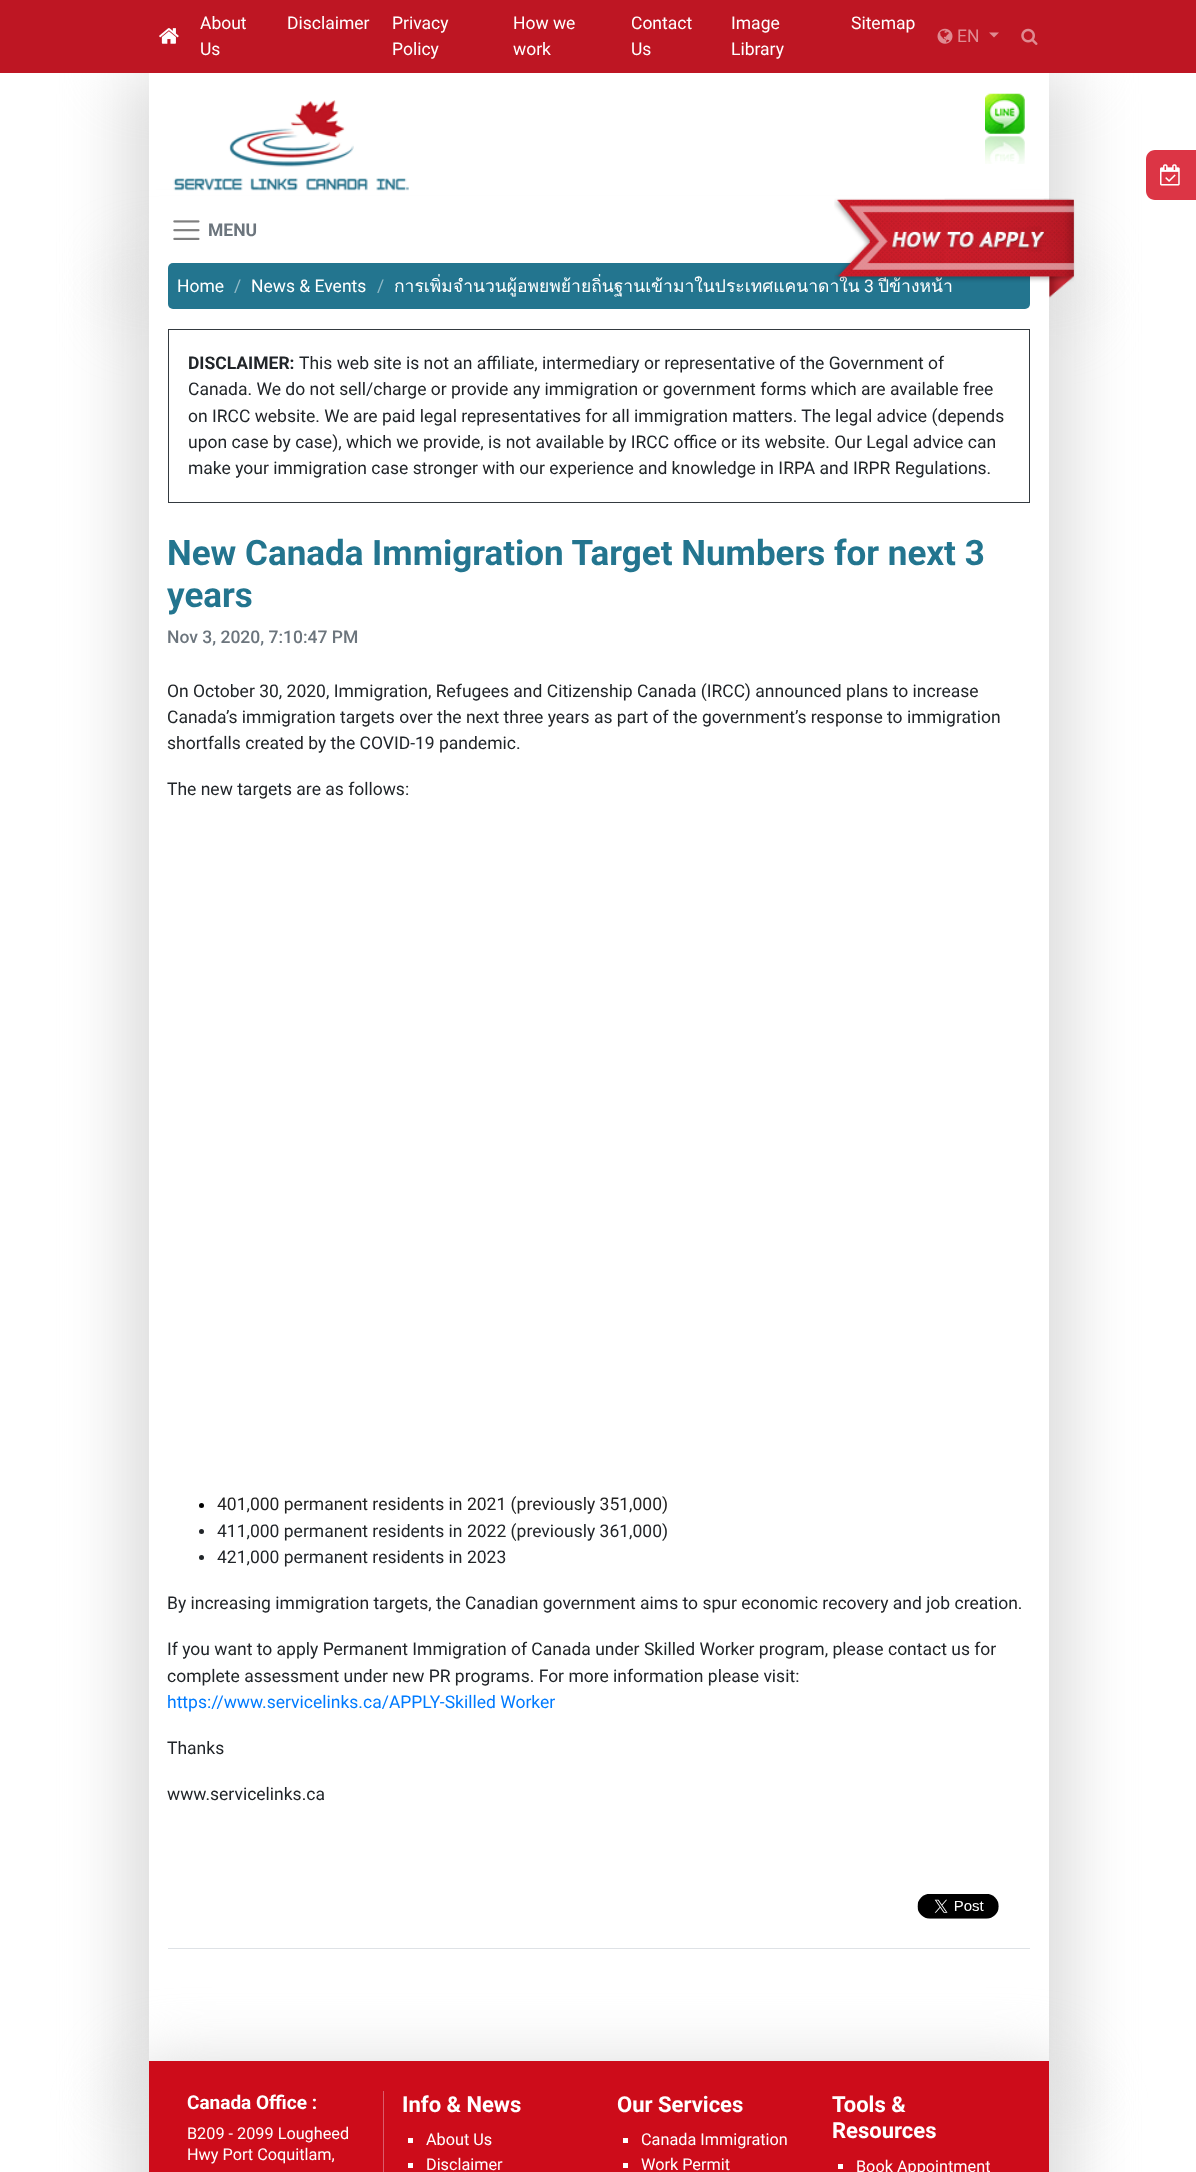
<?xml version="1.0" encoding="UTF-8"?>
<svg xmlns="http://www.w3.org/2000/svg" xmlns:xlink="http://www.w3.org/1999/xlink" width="1196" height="2172">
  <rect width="100%" height="100%" fill="#ffffff" />
  <rect x="124" y="73" width="950" height="240" fill="#dddddd" filter="blur(31px)" />
  <rect width="1196" height="73" fill="#be1623" />
  <image x="159" y="28" width="20" height="16" xlink:href="image1.png" />
  <image x="937" y="28" width="16" height="16" xlink:href="image2.png" />
  <path d="M 989 32.5 h 10 l -5 5 z" fill="#df8b91" />
  <image x="1021" y="28" width="17" height="17" xlink:href="image3.png" />
  <rect x="149" y="73" width="900" height="125" fill="#ffffff" />
  <rect x="124" y="263" width="950" height="1848" fill="#dddddd" filter="blur(31px)" />
  <path d="M 1155 150 h 41 v 50 h -41 c -5 0 -9 -4 -9 -9 v -32 c 0 -5 4 -9 9 -9 z" fill="#dc3545" />
  <image x="1160" y="164" width="20" height="22" xlink:href="image4.png" />
  <image x="173" y="100" width="236" height="91" xlink:href="image5.png" />
  <image x="985" y="93" width="40" height="71" xlink:href="image6.png" />
  <rect x="149" y="198" width="900" height="1863" fill="#ffffff" />
  <image x="173" y="220" width="27" height="20" xlink:href="image7.png" />
  <rect x="168" y="263" width="862" height="46" rx="5" fill="#23758f" />
  <rect x="168.5" y="329.5" width="861" height="173" fill="none" stroke="#343a40" />
  <circle cx="201.5" cy="1505.5" r="2.5" fill="#000000" />
  <circle cx="201.5" cy="1531.5" r="2.5" fill="#212529" />
  <circle cx="201.5" cy="1557.5" r="2.5" fill="#212529" />
  <image x="917" y="1894" width="82" height="25" xlink:href="image9.png" />
  <rect x="168" y="1948" width="862" height="1" fill="#dee2e6" />
  <rect x="124" y="2061" width="950" height="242" rx="38" fill="#dddddd" filter="blur(31px)" />
  <rect x="149" y="2061" width="900" height="111" fill="#cd0c1a" />
  <rect x="383" y="2091" width="1" height="81" fill="#da5c6b" />
  <rect x="408" y="2138" width="5" height="5" fill="#ffffff" />
  <rect x="408" y="2163" width="5" height="5" fill="#ffffff" />
  <rect x="623" y="2138" width="5" height="5" fill="#ffffff" />
  <rect x="623" y="2163" width="5" height="5" fill="#ffffff" />
  <rect x="838" y="2164" width="5" height="5" fill="#ffffff" />
  <text x="200" y="29" style="font-family: Roboto; font-size: 17.5px; fill: #ffffff">About</text>
  <text x="200" y="55" style="font-family: Roboto; font-size: 17.5px; fill: #ffffff">Us</text>
  <text x="287" y="29" style="font-family: Roboto; font-size: 17.5px; fill: #ffffff">Disclaimer</text>
  <text x="392" y="29" style="font-family: Roboto; font-size: 17.5px; fill: #ffffff">Privacy</text>
  <text x="392" y="55" style="font-family: Roboto; font-size: 17.5px; fill: #ffffff">Policy</text>
  <text x="513" y="29" style="font-family: Roboto; font-size: 17.5px; fill: #ffffff">How we</text>
  <text x="513" y="55" style="font-family: Roboto; font-size: 17.5px; fill: #ffffff">work</text>
  <text x="631" y="29" style="font-family: Roboto; font-size: 17.5px; fill: #ffffff">Contact</text>
  <text x="631" y="55" style="font-family: Roboto; font-size: 17.5px; fill: #ffffff">Us</text>
  <text x="731" y="29" style="font-family: Roboto; font-size: 17.5px; fill: #ffffff">Image</text>
  <text x="731" y="55" style="font-family: Roboto; font-size: 17.5px; fill: #ffffff">Library</text>
  <text x="851" y="29" style="font-family: Roboto; font-size: 17.5px; fill: #ffffff">Sitemap</text>
  <text x="957" y="42" style="font-family: Roboto; font-size: 17.5px; fill: #df8b91">EN</text>
  <text x="208" y="236" style="font-family: Roboto; font-size: 17.5px; font-weight: bold; fill: #6c757d">MENU</text>
  <text x="177" y="292" style="font-family: Roboto; font-size: 17.5px; fill: #ffffff">Home</text>
  <text x="234" y="292" style="font-family: Roboto; font-size: 17.5px; fill: #91bac7">/</text>
  <text x="251" y="292" style="font-family: Roboto; font-size: 17.5px; fill: #ffffff">News &amp; Events</text>
  <text x="377" y="292" style="font-family: Roboto; font-size: 17.5px; fill: #91bac7">/</text>
  <text x="394" y="292" style="font-family: Loma; font-size: 17.5px; fill: #ffffff">การเพิ่มจำนวนผู้อพยพย้ายถิ่นฐานเข้ามาในประเทศแคนาดาใน</text>
  <text x="864" y="292" style="font-family: Roboto; font-size: 17.5px; fill: #ffffff">3</text>
  <text x="878" y="292" style="font-family: Loma; font-size: 17.5px; fill: #ffffff">ปีข้างหน้า</text>
  <image x="834" y="198" width="241" height="100" xlink:href="image8.png" />
  <text x="188" y="369" style="font-family: Roboto; font-size: 17.5px; font-weight: bold; fill: #212529">DISCLAIMER:</text>
  <text x="299" y="369" style="font-family: Roboto; font-size: 17.5px; fill: #212529">This web site is not an affiliate, intermediary or representative of the Government of</text>
  <text x="188" y="395" style="font-family: Roboto; font-size: 17.5px; fill: #212529">Canada. We do not sell/charge or provide any immigration or government forms which are available free</text>
  <text x="188" y="422" style="font-family: Roboto; font-size: 17.5px; fill: #212529">on IRCC website. We are paid legal representatives for all immigration matters. The legal advice (depends</text>
  <text x="188" y="448" style="font-family: Roboto; font-size: 17.5px; fill: #212529">upon case by case), which we provide, is not available by IRCC office or its website. Our Legal advice can</text>
  <text x="188" y="474" style="font-family: Roboto; font-size: 17.5px; fill: #212529">make your immigration case stronger with our experience and knowledge in IRPA and IRPR Regulations.</text>
  <text x="167" y="565" style="font-family: Roboto; font-size: 35px; font-weight: bold; fill: #23758f">New Canada Immigration Target Numbers for next 3</text>
  <text x="167" y="607" style="font-family: Roboto; font-size: 35px; font-weight: bold; fill: #23758f">years</text>
  <text x="167" y="643" style="font-family: Roboto; font-size: 17.5px; font-weight: 500; fill: #6c757d">Nov 3, 2020, 7:10:47 PM</text>
  <text x="167" y="697" style="font-family: Roboto; font-size: 17.5px; fill: #212529">On October 30, 2020, Immigration, Refugees and Citizenship Canada (IRCC) announced plans to increase</text>
  <text x="167" y="723" style="font-family: Roboto; font-size: 17.5px; fill: #212529">Canada’s immigration targets over the next three years as part of the government’s response to immigration</text>
  <text x="167" y="749" style="font-family: Roboto; font-size: 17.5px; fill: #212529">shortfalls created by the COVID-19 pandemic.</text>
  <text x="167" y="795" style="font-family: Roboto; font-size: 17.5px; fill: #212529">The new targets are as follows:</text>
  <text x="217" y="1510" style="font-family: Roboto; font-size: 17.5px; fill: #222222">401,000 permanent residents in 2021 (previously 351,000)</text>
  <text x="217" y="1537" style="font-family: Roboto; font-size: 17.5px; fill: #212529">411,000 permanent residents in 2022 (previously 361,000)</text>
  <text x="217" y="1563" style="font-family: Roboto; font-size: 17.5px; fill: #212529">421,000 permanent residents in 2023</text>
  <text x="167" y="1609" style="font-family: Roboto; font-size: 17.5px; fill: #212529">By increasing immigration targets, the Canadian government aims to spur economic recovery and job creation.</text>
  <text x="167" y="1655" style="font-family: Roboto; font-size: 17.5px; fill: #212529">If you want to apply Permanent Immigration of Canada under Skilled Worker program, please contact us for</text>
  <text x="167" y="1682" style="font-family: Roboto; font-size: 17.5px; fill: #212529">complete assessment under new PR programs. For more information please visit:</text>
  <text x="167" y="1708" style="font-family: Roboto; font-size: 17.5px; fill: #007bff">https://www.servicelinks.ca/APPLY-Skilled Worker</text>
  <text x="167" y="1754" style="font-family: Roboto; font-size: 17.5px; fill: #212529">Thanks</text>
  <text x="167" y="1800" style="font-family: Roboto; font-size: 17.5px; fill: #212529">www.servicelinks.ca</text>
  <text x="187" y="2109" style="font-family: Roboto; font-size: 19px; font-weight: bold; fill: #ffffff">Canada Office :</text>
  <text x="187" y="2139" style="font-family: Roboto; font-size: 16.25px; fill: #ffffff">B209 - 2099 Lougheed</text>
  <text x="187" y="2160" style="font-family: Roboto; font-size: 16.25px; fill: #ffffff">Hwy Port Coquitlam,</text>
  <text x="402" y="2112" style="font-family: Roboto; font-size: 22px; font-weight: bold; fill: #ffffff">Info &amp; News</text>
  <text x="426" y="2145" style="font-family: Roboto; font-size: 16.25px; fill: #ffffff">About Us</text>
  <text x="426" y="2170" style="font-family: Roboto; font-size: 16.25px; fill: #ffffff">Disclaimer</text>
  <text x="617" y="2112" style="font-family: Roboto; font-size: 22px; font-weight: bold; fill: #ffffff">Our Services</text>
  <text x="641" y="2145" style="font-family: Roboto; font-size: 16.25px; fill: #ffffff">Canada Immigration</text>
  <text x="641" y="2170" style="font-family: Roboto; font-size: 16.25px; fill: #ffffff">Work Permit</text>
  <text x="832" y="2112" style="font-family: Roboto; font-size: 22px; font-weight: bold; fill: #ffffff">Tools &amp;</text>
  <text x="832" y="2138" style="font-family: Roboto; font-size: 22px; font-weight: bold; fill: #ffffff">Resources</text>
  <text x="856" y="2172" style="font-family: Roboto; font-size: 16.25px; fill: #ffffff">Book Appointment</text>
</svg>
